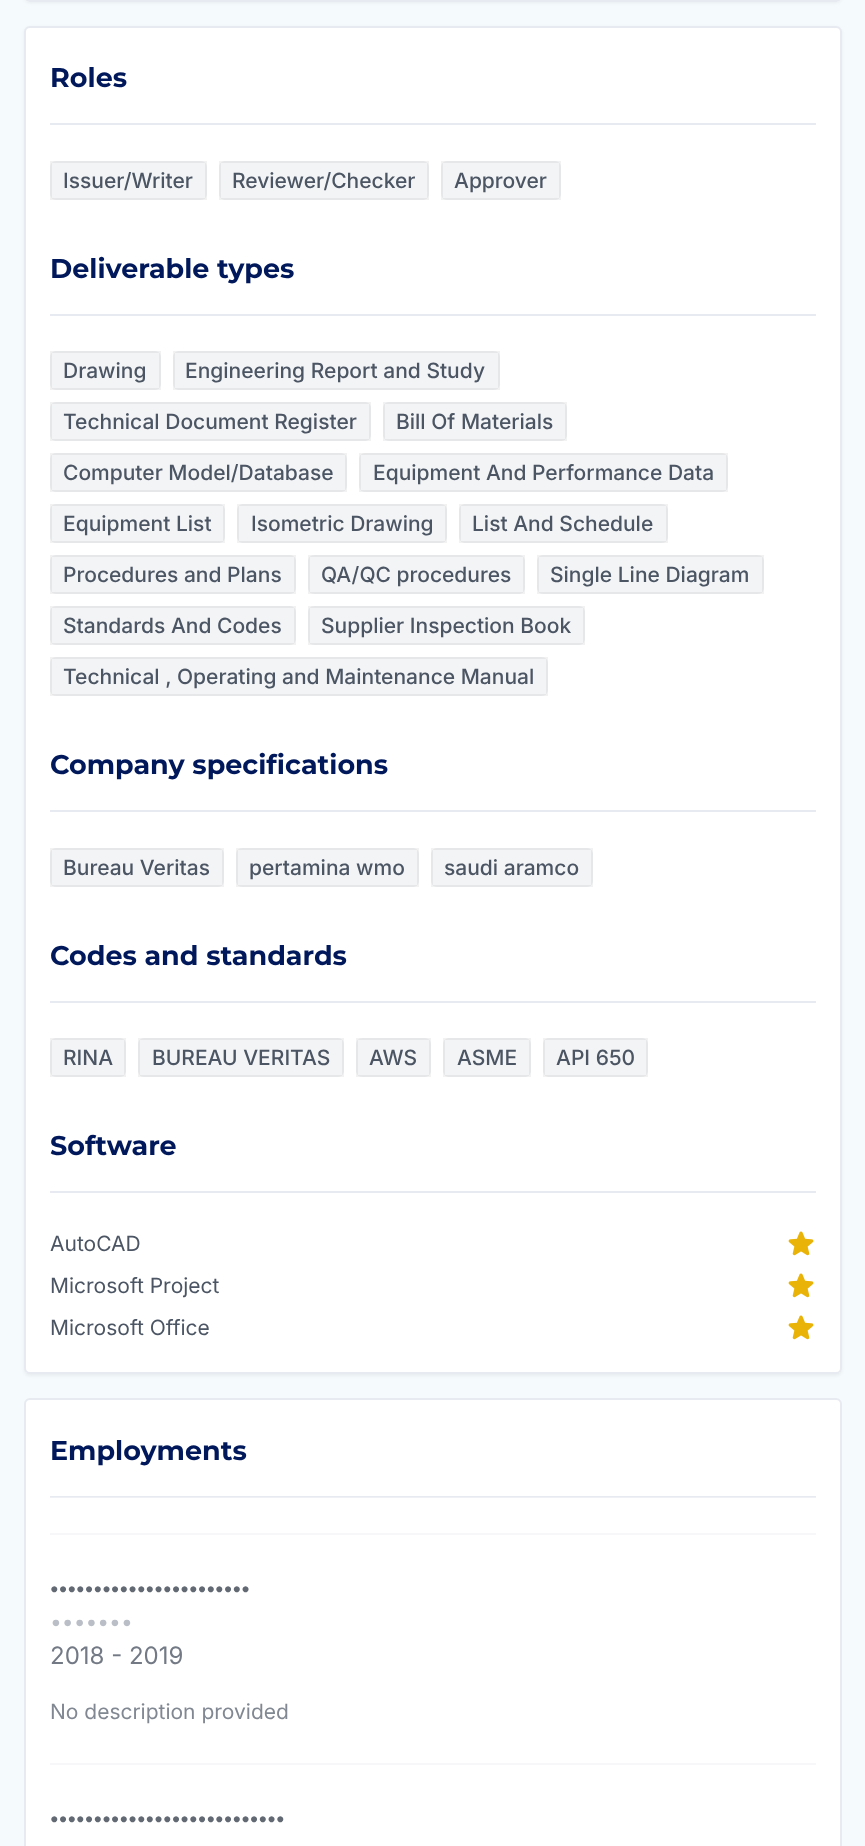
<?xml version="1.0" encoding="UTF-8"?>
<svg xmlns="http://www.w3.org/2000/svg" xmlns:xlink="http://www.w3.org/1999/xlink" width="865" height="1846">
  <rect width="100%" height="100%" fill="#f5fafc" />
  <rect x="24" y="-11" width="818" height="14" rx="6" fill="#000000" fill-opacity="0.05" filter="blur(1.5px)" />
  <rect x="24" y="-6" width="818" height="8" rx="6" fill="#ffffff" />
  <rect x="25" y="-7" width="816" height="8" rx="5" fill="none" stroke="#182d72" stroke-opacity="0.1" stroke-width="2" />
  <rect x="24" y="27" width="818" height="1349" rx="6" fill="#000000" fill-opacity="0.05" filter="blur(1.5px)" />
  <rect x="24" y="26" width="818" height="1348" rx="6" fill="#ffffff" />
  <rect x="25" y="27" width="816" height="1346" rx="5" fill="none" stroke="#182d72" stroke-opacity="0.1" stroke-width="2" />
  <rect x="50" y="123" width="766" height="2" fill="#e8eaf1" />
  <rect x="50" y="161" width="157" height="39" rx="6" fill="#f3f4f6" />
  <rect x="51" y="162" width="155" height="37" fill="none" stroke="#000000" stroke-opacity="0.05" stroke-width="2" />
  <rect x="219" y="161" width="210" height="39" rx="6" fill="#f3f4f6" />
  <rect x="220" y="162" width="208" height="37" fill="none" stroke="#000000" stroke-opacity="0.05" stroke-width="2" />
  <rect x="441" y="161" width="120" height="39" rx="6" fill="#f3f4f6" />
  <rect x="442" y="162" width="118" height="37" fill="none" stroke="#000000" stroke-opacity="0.05" stroke-width="2" />
  <rect x="50" y="314" width="766" height="2" fill="#e8eaf1" />
  <rect x="50" y="351" width="111" height="39" rx="6" fill="#f3f4f6" />
  <rect x="51" y="352" width="109" height="37" fill="none" stroke="#000000" stroke-opacity="0.05" stroke-width="2" />
  <rect x="173" y="351" width="327" height="39" rx="6" fill="#f3f4f6" />
  <rect x="174" y="352" width="325" height="37" fill="none" stroke="#000000" stroke-opacity="0.05" stroke-width="2" />
  <rect x="50" y="402" width="321" height="39" rx="6" fill="#f3f4f6" />
  <rect x="51" y="403" width="319" height="37" fill="none" stroke="#000000" stroke-opacity="0.05" stroke-width="2" />
  <rect x="383" y="402" width="184" height="39" rx="6" fill="#f3f4f6" />
  <rect x="384" y="403" width="182" height="37" fill="none" stroke="#000000" stroke-opacity="0.05" stroke-width="2" />
  <rect x="50" y="453" width="297" height="39" rx="6" fill="#f3f4f6" />
  <rect x="51" y="454" width="295" height="37" fill="none" stroke="#000000" stroke-opacity="0.05" stroke-width="2" />
  <rect x="359" y="453" width="369" height="39" rx="6" fill="#f3f4f6" />
  <rect x="360" y="454" width="367" height="37" fill="none" stroke="#000000" stroke-opacity="0.05" stroke-width="2" />
  <rect x="50" y="504" width="175" height="39" rx="6" fill="#f3f4f6" />
  <rect x="51" y="505" width="173" height="37" fill="none" stroke="#000000" stroke-opacity="0.05" stroke-width="2" />
  <rect x="237" y="504" width="210" height="39" rx="6" fill="#f3f4f6" />
  <rect x="238" y="505" width="208" height="37" fill="none" stroke="#000000" stroke-opacity="0.05" stroke-width="2" />
  <rect x="459" y="504" width="209" height="39" rx="6" fill="#f3f4f6" />
  <rect x="460" y="505" width="207" height="37" fill="none" stroke="#000000" stroke-opacity="0.05" stroke-width="2" />
  <rect x="50" y="555" width="246" height="39" rx="6" fill="#f3f4f6" />
  <rect x="51" y="556" width="244" height="37" fill="none" stroke="#000000" stroke-opacity="0.05" stroke-width="2" />
  <rect x="308" y="555" width="217" height="39" rx="6" fill="#f3f4f6" />
  <rect x="309" y="556" width="215" height="37" fill="none" stroke="#000000" stroke-opacity="0.05" stroke-width="2" />
  <rect x="537" y="555" width="227" height="39" rx="6" fill="#f3f4f6" />
  <rect x="538" y="556" width="225" height="37" fill="none" stroke="#000000" stroke-opacity="0.05" stroke-width="2" />
  <rect x="50" y="606" width="246" height="39" rx="6" fill="#f3f4f6" />
  <rect x="51" y="607" width="244" height="37" fill="none" stroke="#000000" stroke-opacity="0.05" stroke-width="2" />
  <rect x="308" y="606" width="277" height="39" rx="6" fill="#f3f4f6" />
  <rect x="309" y="607" width="275" height="37" fill="none" stroke="#000000" stroke-opacity="0.05" stroke-width="2" />
  <rect x="50" y="657" width="498" height="39" rx="6" fill="#f3f4f6" />
  <rect x="51" y="658" width="496" height="37" fill="none" stroke="#000000" stroke-opacity="0.05" stroke-width="2" />
  <rect x="50" y="810" width="766" height="2" fill="#e8eaf1" />
  <rect x="50" y="848" width="174" height="39" rx="6" fill="#f3f4f6" />
  <rect x="51" y="849" width="172" height="37" fill="none" stroke="#000000" stroke-opacity="0.05" stroke-width="2" />
  <rect x="236" y="848" width="183" height="39" rx="6" fill="#f3f4f6" />
  <rect x="237" y="849" width="181" height="37" fill="none" stroke="#000000" stroke-opacity="0.05" stroke-width="2" />
  <rect x="431" y="848" width="162" height="39" rx="6" fill="#f3f4f6" />
  <rect x="432" y="849" width="160" height="37" fill="none" stroke="#000000" stroke-opacity="0.05" stroke-width="2" />
  <rect x="50" y="1001" width="766" height="2" fill="#e8eaf1" />
  <rect x="50" y="1038" width="76" height="39" rx="6" fill="#f3f4f6" />
  <rect x="51" y="1039" width="74" height="37" fill="none" stroke="#000000" stroke-opacity="0.05" stroke-width="2" />
  <rect x="138" y="1038" width="206" height="39" rx="6" fill="#f3f4f6" />
  <rect x="139" y="1039" width="204" height="37" fill="none" stroke="#000000" stroke-opacity="0.05" stroke-width="2" />
  <rect x="356" y="1038" width="75" height="39" rx="6" fill="#f3f4f6" />
  <rect x="357" y="1039" width="73" height="37" fill="none" stroke="#000000" stroke-opacity="0.05" stroke-width="2" />
  <rect x="443" y="1038" width="88" height="39" rx="6" fill="#f3f4f6" />
  <rect x="444" y="1039" width="86" height="37" fill="none" stroke="#000000" stroke-opacity="0.05" stroke-width="2" />
  <rect x="543" y="1038" width="105" height="39" rx="6" fill="#f3f4f6" />
  <rect x="544" y="1039" width="103" height="37" fill="none" stroke="#000000" stroke-opacity="0.05" stroke-width="2" />
  <rect x="50" y="1191" width="766" height="2" fill="#e8eaf1" />
  <image x="788" y="1231" width="26" height="25" xlink:href="image1.png" />
  <image x="788" y="1273" width="26" height="25" xlink:href="image1.png" />
  <image x="788" y="1315" width="26" height="25" xlink:href="image1.png" />
  <rect x="24" y="1398" width="818" height="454" rx="6" fill="#ffffff" />
  <rect x="25" y="1399" width="816" height="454" rx="5" fill="none" stroke="#182d72" stroke-opacity="0.1" stroke-width="2" />
  <rect x="50" y="1496" width="766" height="1" fill="#e8eaf1" />
  <rect x="50" y="1497" width="766" height="1" fill="#eff0f5" />
  <rect x="50" y="1533" width="766" height="2" fill="#f7f7f9" />
  <rect x="50" y="1763" width="766" height="2" fill="#f7f7f9" />
  <text x="50" y="87" style="font-family: Montserrat; font-size: 27px; font-weight: bold; fill: #01195b">Roles</text>
  <text x="63" y="188" style="font-family: Inter; font-size: 21px; font-weight: 500; fill: #4b5563">Issuer/Writer</text>
  <text x="232" y="188" style="font-family: Inter; font-size: 21px; font-weight: 500; fill: #4b5563">Reviewer/Checker</text>
  <text x="454" y="188" style="font-family: Inter; font-size: 21px; font-weight: 500; fill: #4b5563">Approver</text>
  <text x="50" y="278" style="font-family: Montserrat; font-size: 27px; font-weight: bold; fill: #01195b">Deliverable types</text>
  <text x="63" y="378" style="font-family: Inter; font-size: 21px; font-weight: 500; fill: #4b5563">Drawing</text>
  <text x="185" y="378" style="font-family: Inter; font-size: 21px; font-weight: 500; fill: #4b5563">Engineering Report and Study</text>
  <text x="63" y="429" style="font-family: Inter; font-size: 21px; font-weight: 500; fill: #4b5563">Technical Document Register</text>
  <text x="396" y="429" style="font-family: Inter; font-size: 21px; font-weight: 500; fill: #4b5563">Bill Of Materials</text>
  <text x="63" y="480" style="font-family: Inter; font-size: 21px; font-weight: 500; fill: #4b5563">Computer Model/Database</text>
  <text x="373" y="480" style="font-family: Inter; font-size: 21px; font-weight: 500; fill: #4b5563">Equipment And Performance Data</text>
  <text x="63" y="531" style="font-family: Inter; font-size: 21px; font-weight: 500; fill: #4b5563">Equipment List</text>
  <text x="251" y="531" style="font-family: Inter; font-size: 21px; font-weight: 500; fill: #4b5563">Isometric Drawing</text>
  <text x="472" y="531" style="font-family: Inter; font-size: 21px; font-weight: 500; fill: #4b5563">List And Schedule</text>
  <text x="63" y="582" style="font-family: Inter; font-size: 21px; font-weight: 500; fill: #4b5563">Procedures and Plans</text>
  <text x="321" y="582" style="font-family: Inter; font-size: 21px; font-weight: 500; fill: #4b5563">QA/QC procedures</text>
  <text x="550" y="582" style="font-family: Inter; font-size: 21px; font-weight: 500; fill: #4b5563">Single Line Diagram</text>
  <text x="63" y="633" style="font-family: Inter; font-size: 21px; font-weight: 500; fill: #4b5563">Standards And Codes</text>
  <text x="321" y="633" style="font-family: Inter; font-size: 21px; font-weight: 500; fill: #4b5563">Supplier Inspection Book</text>
  <text x="63" y="684" style="font-family: Inter; font-size: 21px; font-weight: 500; fill: #4b5563">Technical , Operating and Maintenance Manual</text>
  <text x="50" y="774" style="font-family: Montserrat; font-size: 27px; font-weight: bold; fill: #01195b">Company specifications</text>
  <text x="63" y="875" style="font-family: Inter; font-size: 21px; font-weight: 500; fill: #4b5563">Bureau Veritas</text>
  <text x="249" y="875" style="font-family: Inter; font-size: 21px; font-weight: 500; fill: #4b5563">pertamina wmo</text>
  <text x="444" y="875" style="font-family: Inter; font-size: 21px; font-weight: 500; fill: #4b5563">saudi aramco</text>
  <text x="50" y="965" style="font-family: Montserrat; font-size: 27px; font-weight: bold; fill: #01195b">Codes and standards</text>
  <text x="63" y="1065" style="font-family: Inter; font-size: 21px; font-weight: 500; fill: #4b5563">RINA</text>
  <text x="152" y="1065" style="font-family: Inter; font-size: 21px; font-weight: 500; fill: #4b5563">BUREAU VERITAS</text>
  <text x="369" y="1065" style="font-family: Inter; font-size: 21px; font-weight: 500; fill: #4b5563">AWS</text>
  <text x="457" y="1065" style="font-family: Inter; font-size: 21px; font-weight: 500; fill: #4b5563">ASME</text>
  <text x="556" y="1065" style="font-family: Inter; font-size: 21px; font-weight: 500; fill: #4b5563">API 650</text>
  <text x="50" y="1155" style="font-family: Montserrat; font-size: 27px; font-weight: bold; fill: #01195b">Software</text>
  <text x="50" y="1251" style="font-family: Inter; font-size: 21px; fill: #4b5563">AutoCAD</text>
  <text x="50" y="1293" style="font-family: Inter; font-size: 21px; fill: #4b5563">Microsoft Project</text>
  <text x="50" y="1335" style="font-family: Inter; font-size: 21px; fill: #4b5563">Microsoft Office</text>
  <text x="50" y="1460" style="font-family: Montserrat; font-size: 27px; font-weight: bold; fill: #01195b">Employments</text>
  <text x="50" y="1596" style="font-family: Montserrat; font-size: 24px; font-weight: bold; fill: #626973">•••••••••••••••••••••••</text>
  <text x="50" y="1629" style="font-family: Inter; font-size: 21px; fill: #babfc7">•••••••</text>
  <text x="50" y="1664" style="font-family: Inter; font-size: 24px; fill: #737a85">2018 - 2019</text>
  <text x="50" y="1719" style="font-family: Inter; font-size: 21px; fill: #818892">No description provided</text>
  <text x="50" y="1826" style="font-family: Montserrat; font-size: 24px; font-weight: bold; fill: #626973">•••••••••••••••••••••••••••</text>
</svg>
